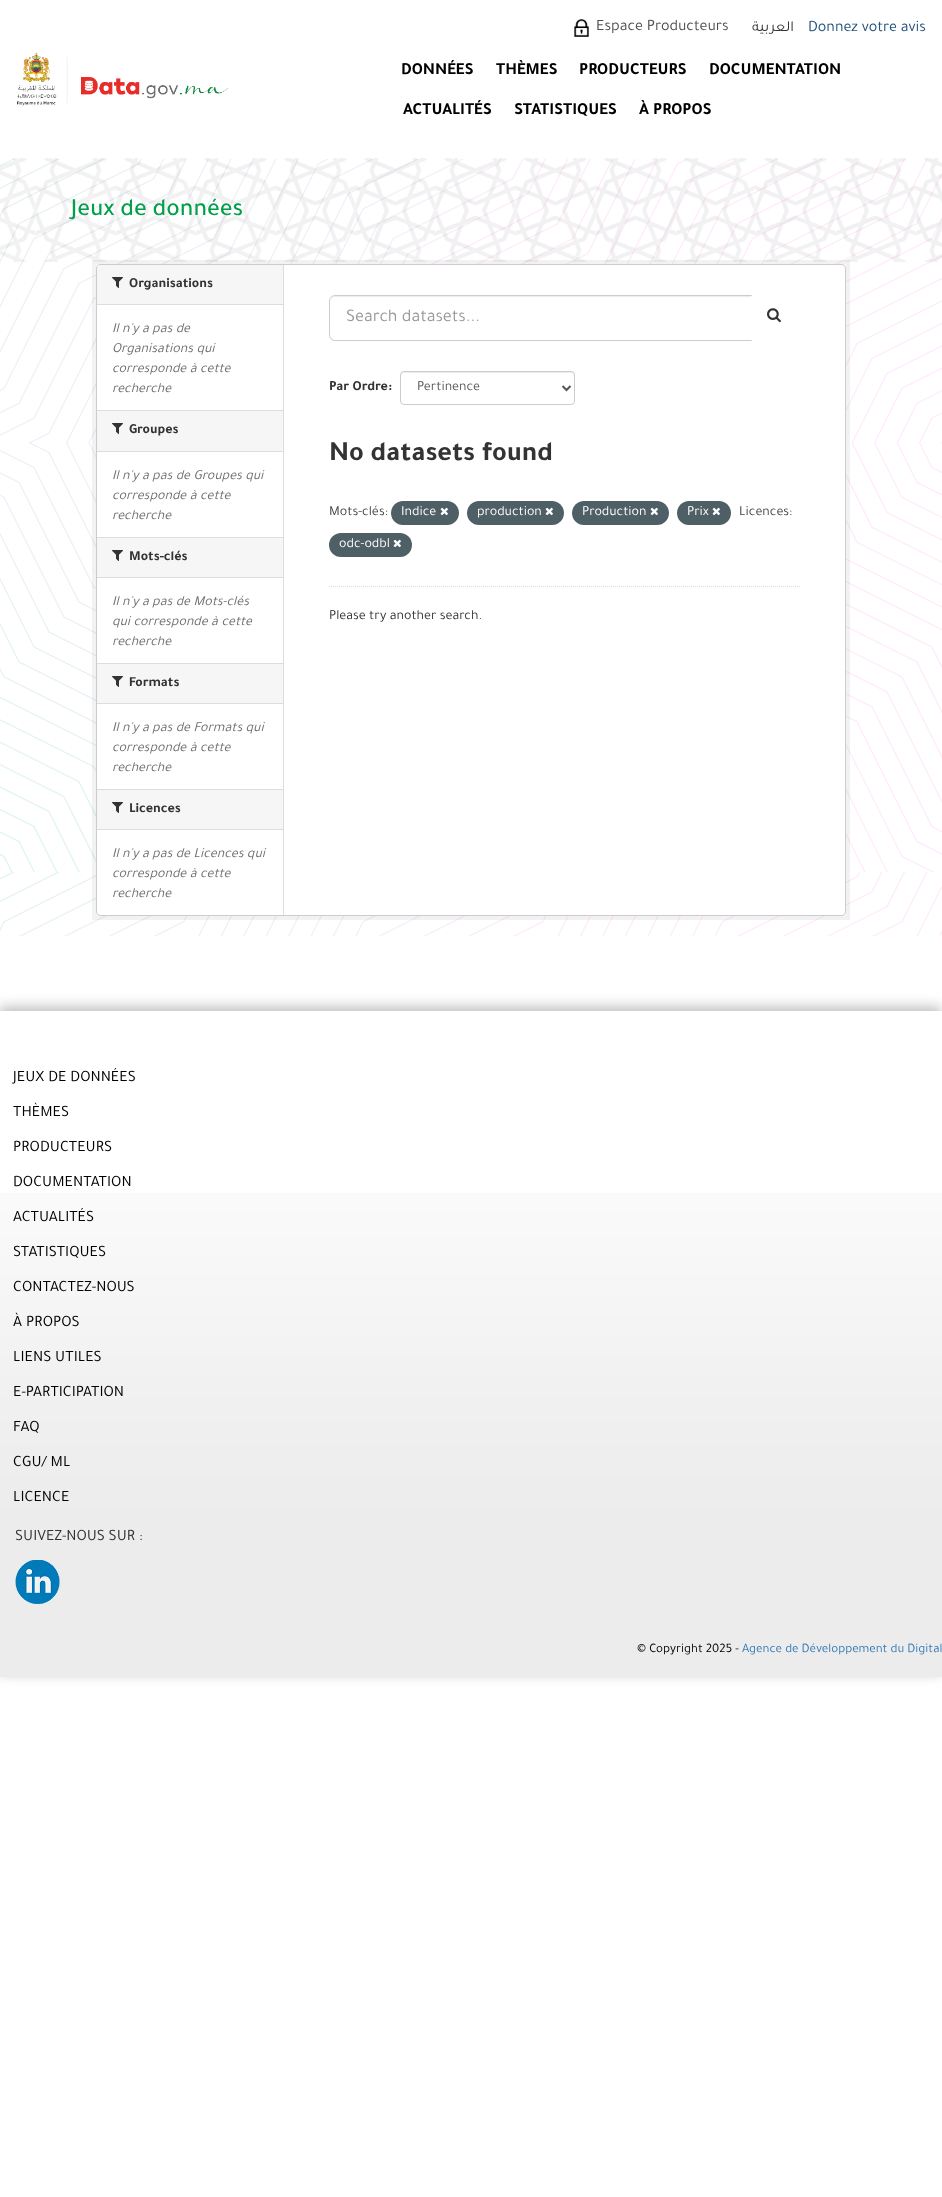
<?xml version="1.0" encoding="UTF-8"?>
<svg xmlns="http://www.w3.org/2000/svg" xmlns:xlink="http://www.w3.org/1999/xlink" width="942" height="2197">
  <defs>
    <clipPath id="clip1"><path d="M 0 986 h 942 v 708 h -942 z m 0 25 h 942 v 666 h -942 z" clip-rule="evenodd" /></clipPath>
  </defs>
  <rect width="100%" height="100%" fill="#ffffff" />
  <image x="17" y="52" width="211" height="54" xlink:href="image1.png" />
  <image x="574" y="19" width="15" height="18" xlink:href="image2.png" />
  <image x="0" y="159" width="942" height="777" xlink:href="image4.png" />
  <rect x="94" y="262" width="754" height="656" fill="none" stroke="#000000" stroke-opacity="0.05" stroke-width="4" />
  <rect x="96.5" y="264.5" width="749" height="651" rx="3.5" fill="#ffffff" stroke="#cccccc" />
  <path d="M 100 265 h 183 v 40 h -186 v -37 c 0 -1.5 1.5 -3 3 -3 z" fill="#f6f6f6" />
  <rect x="97" y="304" width="186" height="1" fill="#dddddd" />
  <image x="112" y="277" width="11" height="11" xlink:href="image5.png" />
  <rect x="97" y="411" width="186" height="40" fill="#f6f6f6" />
  <rect x="97" y="410" width="186" height="1" fill="#dddddd" />
  <rect x="97" y="451" width="186" height="1" fill="#dddddd" />
  <image x="112" y="423" width="11" height="11" xlink:href="image5.png" />
  <rect x="97" y="538" width="186" height="39" fill="#f6f6f6" />
  <rect x="97" y="537" width="186" height="1" fill="#dddddd" />
  <rect x="97" y="577" width="186" height="1" fill="#dddddd" />
  <image x="112" y="550" width="11" height="11" xlink:href="image5.png" />
  <rect x="97" y="664" width="186" height="39" fill="#f6f6f6" />
  <rect x="97" y="663" width="186" height="1" fill="#dddddd" />
  <rect x="97" y="703" width="186" height="1" fill="#dddddd" />
  <image x="112" y="676" width="11" height="11" xlink:href="image5.png" />
  <rect x="97" y="790" width="186" height="39" fill="#f6f6f6" />
  <rect x="97" y="789" width="186" height="1" fill="#dddddd" />
  <rect x="97" y="829" width="186" height="1" fill="#dddddd" />
  <image x="112" y="802" width="11" height="11" xlink:href="image5.png" />
  <rect x="283" y="265" width="1" height="650" fill="#dddddd" />
  <path d="M 329 586.5 h 471" fill="none" stroke="#dddddd" stroke-dasharray="1 1" />
  <path d="M 335 297 h 416 v -1 h -416 c -3 0 -5 3 -5 6 c 0 -3 2 -5 5 -5 z" fill="#ececec" />
  <path d="M 335 295.5 h 416.5 v 45 h -416.5 c -3 0 -5.5 -2.5 -5.5 -5.5 v -34 c 0 -3 2.5 -5.5 5.5 -5.5 z" fill="none" stroke="#cccccc" />
  <path d="M 751 296 h 43 c 3.5 0 6 2.5 6 6 v 32 c 0 3.5 -2.5 6 -6 6 h -43 z" fill="#ffffff" />
  <image x="767" y="308" width="14" height="15" xlink:href="image6.png" />
  <path d="M 404 373 h 167 c 2 0 3 1 3 3 v -1 c 0 -2 -1 -3 -3 -3 h -167 c -2 0 -3 1 -3 3 v 1 c 0 -2 1 -3 3 -3 z" fill="#ececec" />
  <rect x="400.5" y="371.5" width="174" height="33" rx="3.5" fill="none" stroke="#cccccc" />
  <path d="M 562.5 386 l 4 4 l 4 -4" fill="none" stroke="#555555" stroke-width="2" />
  <rect x="391" y="501" width="68" height="24" rx="12" fill="#4e5f65" />
  <image x="440" y="507" width="8" height="9" xlink:href="image7.png" />
  <rect x="467" y="501" width="97" height="24" rx="12" fill="#4e5f65" />
  <image x="545" y="507" width="8" height="9" xlink:href="image7.png" />
  <rect x="572" y="501" width="97" height="24" rx="12" fill="#4e5f65" />
  <image x="650" y="507" width="8" height="9" xlink:href="image7.png" />
  <rect x="677" y="501" width="54" height="24" rx="12" fill="#4e5f65" />
  <image x="712" y="507" width="8" height="9" xlink:href="image7.png" />
  <rect x="329" y="533" width="83" height="24" rx="12" fill="#4e5f65" />
  <image x="393" y="539" width="8" height="9" xlink:href="image7.png" />
  <g clip-path="url(#clip1)">
    <rect x="-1" y="1007" width="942" height="666" fill="#aba4a4" fill-opacity="0.75" filter="blur(6.5px)" />
  </g>
  <image x="0" y="1193" width="942" height="484" xlink:href="image8.png" />
  <image x="15" y="1560" width="45" height="44" xlink:href="image9.png" />
  <text x="596" y="30" style="font-family: Tajawal; font-size: 16px; fill: #4f4f4f">Espace Producteurs</text>
  <text x="794" y="31" style="font-family: Tajawal; font-size: 15px; direction: rtl; fill: #333333">العربية</text>
  <text x="808" y="31" style="font-family: Tajawal; font-size: 16px; fill: #23527c">Donnez votre avis</text>
  <text x="401" y="74" style="font-family: Tajawal; font-size: 17px; font-weight: bold; fill: #000000">DONNÉES</text>
  <text x="496" y="74" style="font-family: Tajawal; font-size: 17px; font-weight: bold; fill: #000000">THÈMES</text>
  <text x="579" y="74" style="font-family: Tajawal; font-size: 17px; font-weight: bold; fill: #000000">PRODUCTEURS</text>
  <text x="709" y="74" style="font-family: Tajawal; font-size: 17px; font-weight: bold; fill: #000000">DOCUMENTATION</text>
  <text x="403" y="114" style="font-family: Tajawal; font-size: 17px; font-weight: bold; fill: #000000">ACTUALITÉS</text>
  <text x="514" y="114" style="font-family: Tajawal; font-size: 17px; font-weight: bold; fill: #000000">STATISTIQUES</text>
  <text x="639" y="114" style="font-family: Tajawal; font-size: 17px; font-weight: bold; fill: #000000">À PROPOS</text>
  <text x="71" y="215" style="font-family: Tajawal; font-size: 25px; font-weight: 500; fill: #00a04a">Jeux de données</text>
  <image x="0" y="158" width="942" height="104" xlink:href="image3.png" />
  <text x="129" y="287" style="font-family: Tajawal; font-size: 14px; font-weight: bold; fill: #333333">Organisations</text>
  <text x="112" y="332" style="font-family: Tajawal; font-size: 14px; font-style: italic; fill: #6e6e6e">Il n'y a pas de</text>
  <text x="112" y="352" style="font-family: Tajawal; font-size: 14px; font-style: italic; fill: #6e6e6e">Organisations qui</text>
  <text x="112" y="372" style="font-family: Tajawal; font-size: 14px; font-style: italic; fill: #6e6e6e">corresponde à cette</text>
  <text x="112" y="392" style="font-family: Tajawal; font-size: 14px; font-style: italic; fill: #6e6e6e">recherche</text>
  <text x="129" y="433" style="font-family: Tajawal; font-size: 14px; font-weight: bold; fill: #333333">Groupes</text>
  <text x="112" y="479" style="font-family: Tajawal; font-size: 14px; font-style: italic; fill: #6e6e6e">Il n'y a pas de Groupes qui</text>
  <text x="112" y="499" style="font-family: Tajawal; font-size: 14px; font-style: italic; fill: #6e6e6e">corresponde à cette</text>
  <text x="112" y="519" style="font-family: Tajawal; font-size: 14px; font-style: italic; fill: #6e6e6e">recherche</text>
  <text x="129" y="560" style="font-family: Tajawal; font-size: 14px; font-weight: bold; fill: #333333">Mots-clés</text>
  <text x="112" y="605" style="font-family: Tajawal; font-size: 14px; font-style: italic; fill: #6e6e6e">Il n'y a pas de Mots-clés</text>
  <text x="112" y="625" style="font-family: Tajawal; font-size: 14px; font-style: italic; fill: #6e6e6e">qui corresponde à cette</text>
  <text x="112" y="645" style="font-family: Tajawal; font-size: 14px; font-style: italic; fill: #6e6e6e">recherche</text>
  <text x="129" y="686" style="font-family: Tajawal; font-size: 14px; font-weight: bold; fill: #333333">Formats</text>
  <text x="112" y="731" style="font-family: Tajawal; font-size: 14px; font-style: italic; fill: #6e6e6e">Il n'y a pas de Formats qui</text>
  <text x="112" y="751" style="font-family: Tajawal; font-size: 14px; font-style: italic; fill: #6e6e6e">corresponde à cette</text>
  <text x="112" y="771" style="font-family: Tajawal; font-size: 14px; font-style: italic; fill: #6e6e6e">recherche</text>
  <text x="129" y="812" style="font-family: Tajawal; font-size: 14px; font-weight: bold; fill: #333333">Licences</text>
  <text x="112" y="857" style="font-family: Tajawal; font-size: 14px; font-style: italic; fill: #6e6e6e">Il n'y a pas de Licences qui</text>
  <text x="112" y="877" style="font-family: Tajawal; font-size: 14px; font-style: italic; fill: #6e6e6e">corresponde à cette</text>
  <text x="112" y="897" style="font-family: Tajawal; font-size: 14px; font-style: italic; fill: #6e6e6e">recherche</text>
  <text x="346" y="321" style="font-family: Tajawal; font-size: 18px; fill: #999999">Search datasets...</text>
  <text x="329" y="390" style="font-family: Tajawal; font-size: 14px; font-weight: bold; fill: #333333">Par Ordre:</text>
  <text x="417" y="390" style="font-family: Tajawal; font-size: 14px; fill: #555555">Pertinence</text>
  <text x="329" y="460" style="font-family: Tajawal; font-size: 28px; font-weight: bold; fill: #333333">No datasets found</text>
  <text x="329" y="515" style="font-family: Tajawal; font-size: 14px; fill: #444444">Mots-clés:</text>
  <text x="401" y="515" style="font-family: Tajawal; font-size: 14px; fill: #ffffff">Indice</text>
  <text x="477" y="515" style="font-family: Tajawal; font-size: 14px; fill: #ffffff">production</text>
  <text x="582" y="515" style="font-family: Tajawal; font-size: 14px; fill: #ffffff">Production</text>
  <text x="687" y="515" style="font-family: Tajawal; font-size: 14px; fill: #ffffff">Prix</text>
  <text x="739" y="515" style="font-family: Tajawal; font-size: 14px; fill: #444444">Licences:</text>
  <text x="339" y="547" style="font-family: Tajawal; font-size: 14px; fill: #ffffff">odc-odbl</text>
  <text x="329" y="619" style="font-family: Tajawal; font-size: 14px; fill: #333333">Please try another search.</text>
  <text x="13" y="1081" style="font-family: Tajawal; font-size: 16px; fill: #000000">JEUX DE DONNÉES</text>
  <text x="13" y="1116" style="font-family: Tajawal; font-size: 16px; fill: #000000">THÈMES</text>
  <text x="13" y="1151" style="font-family: Tajawal; font-size: 16px; fill: #000000">PRODUCTEURS</text>
  <text x="13" y="1186" style="font-family: Tajawal; font-size: 16px; fill: #000000">DOCUMENTATION</text>
  <text x="13" y="1221" style="font-family: Tajawal; font-size: 16px; fill: #000000">ACTUALITÉS</text>
  <text x="13" y="1256" style="font-family: Tajawal; font-size: 16px; fill: #000000">STATISTIQUES</text>
  <text x="13" y="1291" style="font-family: Tajawal; font-size: 16px; fill: #000000">CONTACTEZ-NOUS</text>
  <text x="13" y="1326" style="font-family: Tajawal; font-size: 16px; fill: #000000">À PROPOS</text>
  <text x="13" y="1361" style="font-family: Tajawal; font-size: 16px; fill: #000000">LIENS UTILES</text>
  <text x="13" y="1396" style="font-family: Tajawal; font-size: 16px; fill: #000000">E-PARTICIPATION</text>
  <text x="13" y="1431" style="font-family: Tajawal; font-size: 16px; fill: #000000">FAQ</text>
  <text x="13" y="1466" style="font-family: Tajawal; font-size: 16px; fill: #000000">CGU/ ML</text>
  <text x="13" y="1501" style="font-family: Tajawal; font-size: 16px; fill: #000000">LICENCE</text>
  <text x="15" y="1540" style="font-family: Tajawal; font-size: 16px; fill: #333333">SUIVEZ-NOUS SUR :</text>
  <text x="637" y="1652" style="font-family: Tajawal; font-size: 13px; fill: #000000">© Copyright 2025 -</text>
  <text x="742" y="1652" style="font-family: Tajawal; font-size: 13px; fill: #337ab7">Agence de Développement du Digital</text>
</svg>
